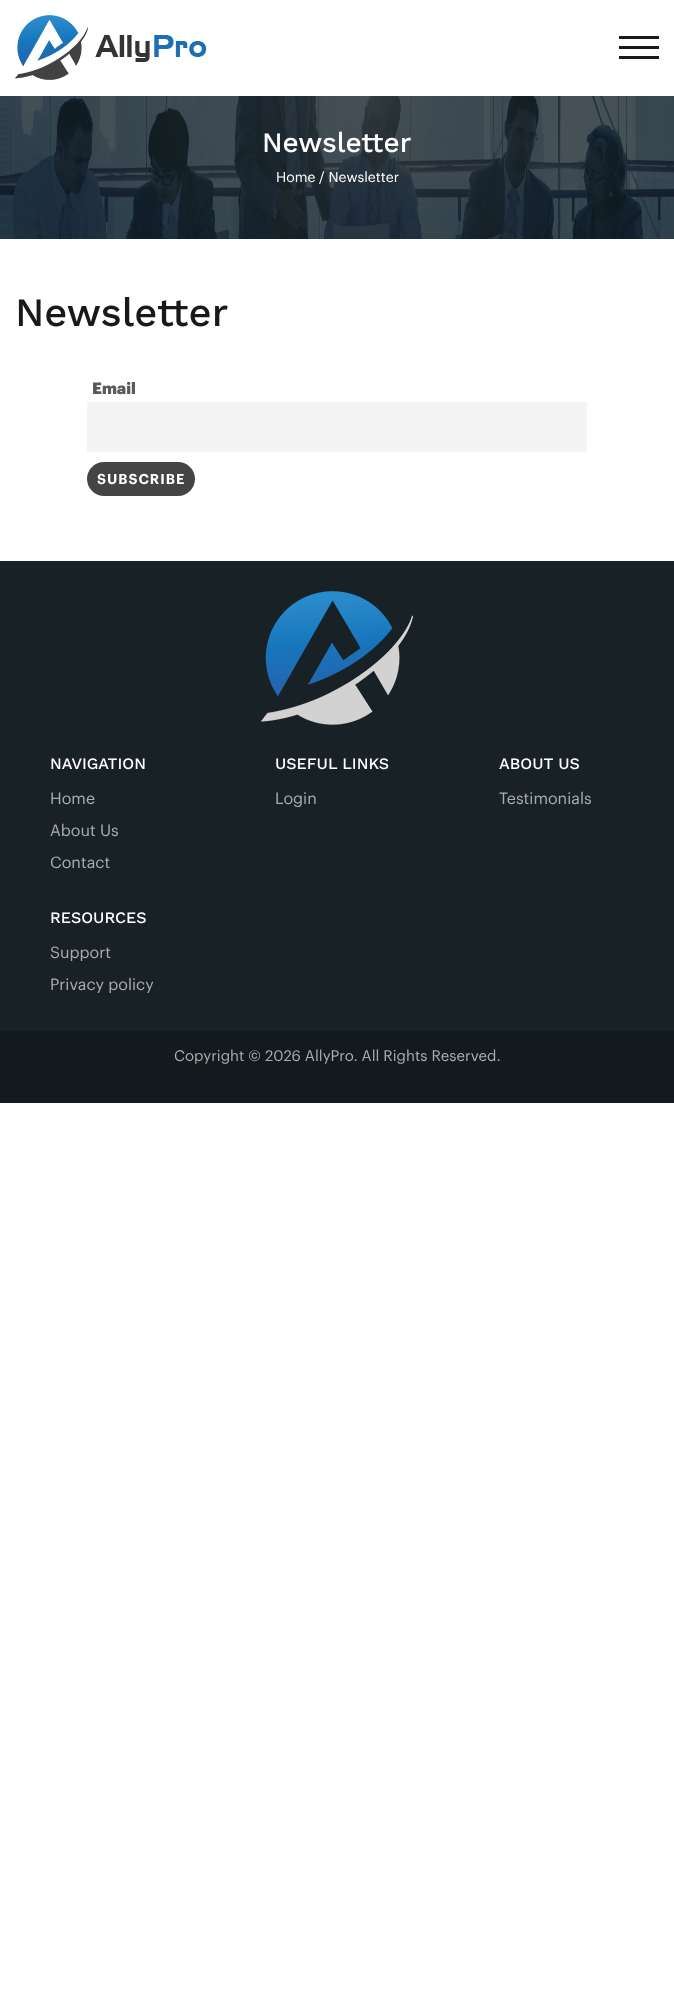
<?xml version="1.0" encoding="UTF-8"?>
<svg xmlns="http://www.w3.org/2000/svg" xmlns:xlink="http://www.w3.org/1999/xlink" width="674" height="2000">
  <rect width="100%" height="100%" fill="#ffffff" />
  <image x="15" y="15" width="192" height="65" xlink:href="image1.png" />
  <rect x="619" y="46" width="40" height="3" fill="#191919" />
  <rect x="619" y="36" width="40" height="3" fill="#191919" />
  <rect x="619" y="56" width="40" height="3" fill="#191919" />
  <image x="0" y="96" width="674" height="143" xlink:href="image2.png" />
  <rect x="87" y="402" width="500" height="50" fill="#f4f4f4" />
  <rect x="87" y="462" width="108" height="34" rx="17" fill="#444444" />
  <rect y="561" width="674" height="470" fill="#182126" />
  <image x="261" y="591" width="152" height="134" xlink:href="image3.png" />
  <rect y="1031" width="674" height="72" fill="#131a1e" />
  <text x="262" y="152" style="font-family: Work Sans; font-size: 28px; font-weight: 500; fill: #ffffff">Newsletter</text>
  <text x="276" y="182" style="font-family: Graphik; font-size: 14px; fill: #ffffff">Home / Newsletter</text>
  <text x="15" y="326" style="font-family: Work Sans; font-size: 40px; font-weight: 500; fill: #191919">Newsletter</text>
  <text x="92" y="394" style="font-family: Graphik; font-size: 16px; font-weight: 900; fill: #595959">Email</text>
  <text x="97" y="484" style="font-family: Graphik; font-size: 14px; font-weight: 600; letter-spacing: 1px; fill: #ffffff">SUBSCRIBE</text>
  <text x="50" y="769" style="font-family: Work Sans; font-size: 16px; font-weight: 500; fill: #ffffff">NAVIGATION</text>
  <text x="50" y="804" style="font-family: Graphik; font-size: 16px; fill: #acacac">Home</text>
  <text x="50" y="836" style="font-family: Graphik; font-size: 16px; fill: #acacac">About Us</text>
  <text x="50" y="868" style="font-family: Graphik; font-size: 16px; fill: #acacac">Contact</text>
  <text x="275" y="769" style="font-family: Work Sans; font-size: 16px; font-weight: 500; fill: #ffffff">USEFUL LINKS</text>
  <text x="275" y="804" style="font-family: Graphik; font-size: 16px; fill: #acacac">Login</text>
  <text x="499" y="769" style="font-family: Work Sans; font-size: 16px; font-weight: 500; fill: #ffffff">ABOUT US</text>
  <text x="499" y="804" style="font-family: Graphik; font-size: 16px; fill: #acacac">Testimonials</text>
  <text x="50" y="923" style="font-family: Work Sans; font-size: 16px; font-weight: 500; fill: #ffffff">RESOURCES</text>
  <text x="50" y="958" style="font-family: Graphik; font-size: 16px; fill: #acacac">Support</text>
  <text x="50" y="990" style="font-family: Graphik; font-size: 16px; fill: #acacac">Privacy policy</text>
  <text x="174" y="1061" style="font-family: Graphik; font-size: 15px; fill: #acacac">Copyright © 2026 AllyPro. All Rights Reserved.</text>
</svg>
